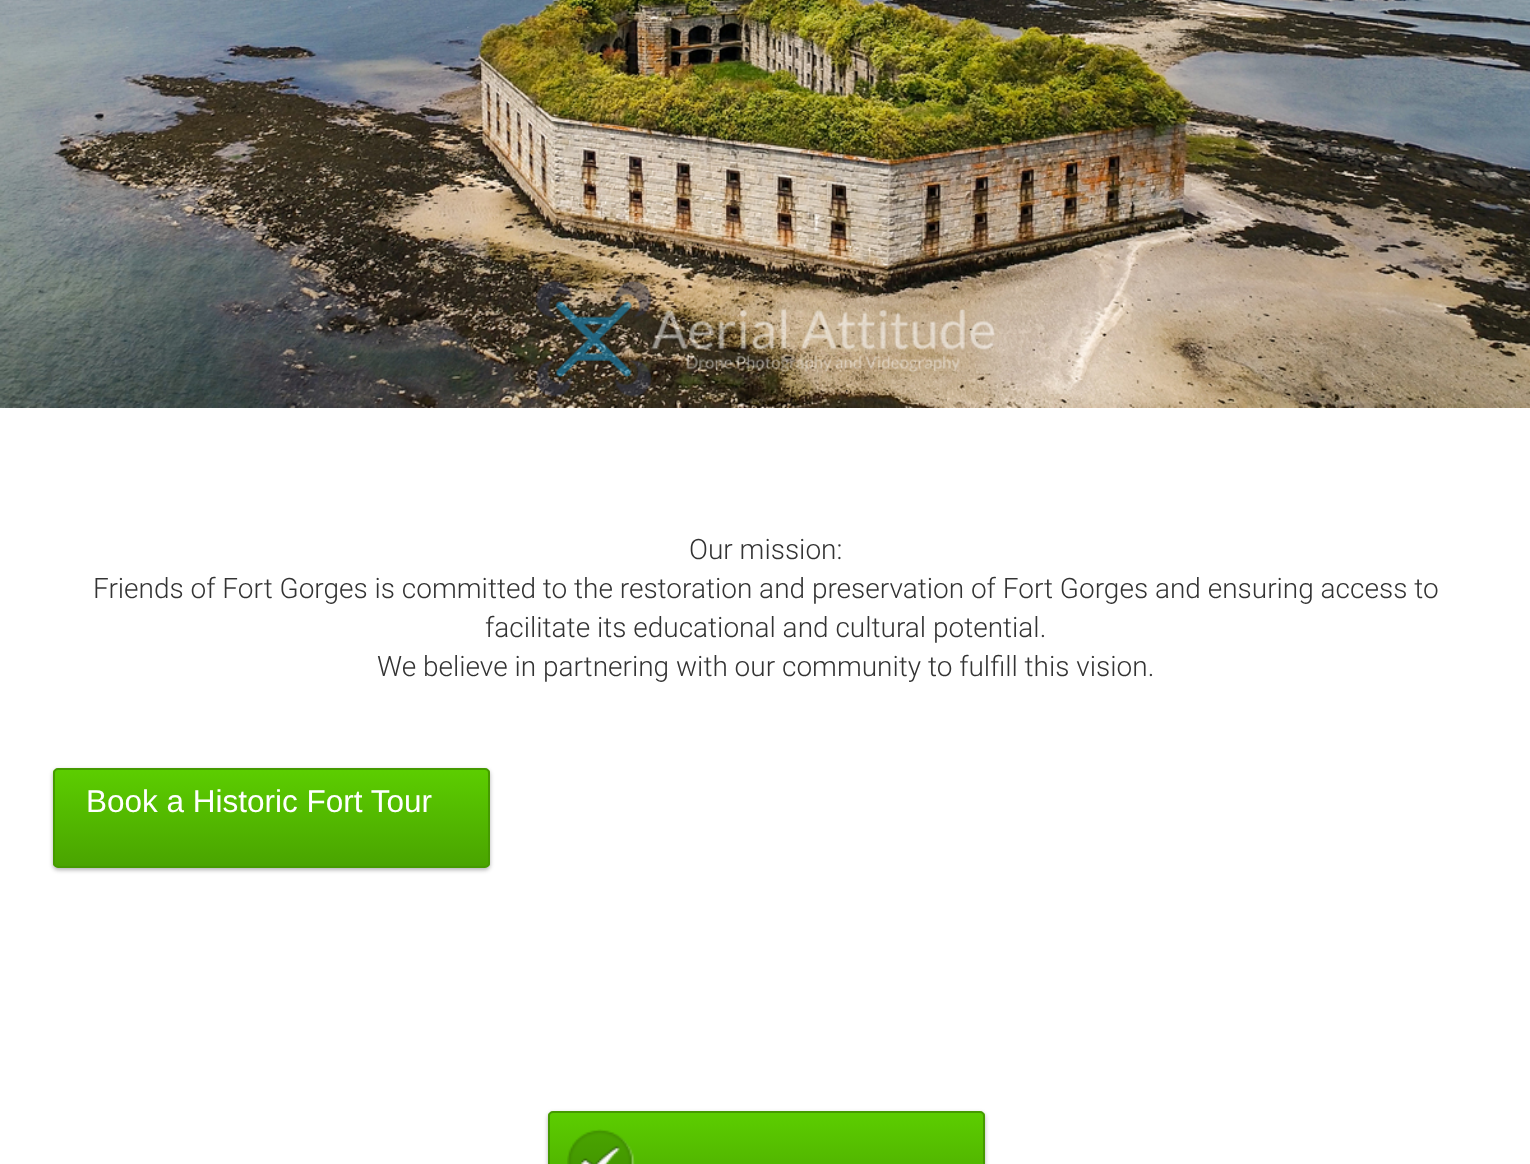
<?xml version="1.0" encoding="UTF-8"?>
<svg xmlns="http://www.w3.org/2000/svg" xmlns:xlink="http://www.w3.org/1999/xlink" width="1530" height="1164">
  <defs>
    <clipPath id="clip1"><rect x="53" y="768" width="437" height="100" rx="5" /></clipPath>
    <linearGradient id="g1" gradientUnits="userSpaceOnUse" x1="271" y1="770" x2="271" y2="866"><stop offset="0" stop-color="#5ccd00" /><stop offset="1" stop-color="#4aa400" /></linearGradient>
    <clipPath id="clip2"><rect x="548" y="1111" width="437" height="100" rx="5" /></clipPath>
    <linearGradient id="g2" gradientUnits="userSpaceOnUse" x1="767" y1="1113" x2="767" y2="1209"><stop offset="0" stop-color="#5ccd00" /><stop offset="1" stop-color="#4aa400" /></linearGradient>
  </defs>
  <rect width="100%" height="100%" fill="#ffffff" />
  <image x="0" y="0" width="1530" height="408" xlink:href="image1.png" />
  <rect x="53" y="770" width="437" height="100" rx="5" fill="#000000" fill-opacity="0.3" filter="blur(2px)" />
  <g clip-path="url(#clip1)">
    <rect x="53" y="770" width="437" height="96" fill="url(#g1)" />
  </g>
  <rect x="54" y="769" width="435" height="98" rx="4" fill="none" stroke="#459a00" stroke-width="2" />
  <rect x="548" y="1113" width="437" height="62" rx="5" fill="#000000" fill-opacity="0.3" filter="blur(2px)" />
  <g clip-path="url(#clip2)">
    <rect x="548" y="1113" width="437" height="51" fill="url(#g2)" />
  </g>
  <rect x="549" y="1112" width="435" height="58" rx="4" fill="none" stroke="#459a00" stroke-width="2" />
  <image x="567" y="1129" width="68" height="35" xlink:href="image2.png" />
  <text x="689" y="559" style="font-family: Roboto; font-size: 28px; font-weight: 300; fill: #333333">Our mission:</text>
  <text x="93" y="598" style="font-family: Roboto; font-size: 28px; font-weight: 300; fill: #333333">Friends of Fort Gorges is committed to the restoration and preservation of Fort Gorges and ensuring access to</text>
  <text x="485" y="637" style="font-family: Roboto; font-size: 28px; font-weight: 300; fill: #333333">facilitate its educational and cultural potential.</text>
  <text x="377" y="676" style="font-family: Roboto; font-size: 28px; font-weight: 300; fill: #333333">We believe in partnering with our community to fulfill this vision.</text>
  <text x="86" y="812" style="font-family: Liberation Sans; font-size: 31.5px; fill: #ffffff">Book a Historic Fort Tour</text>
</svg>
